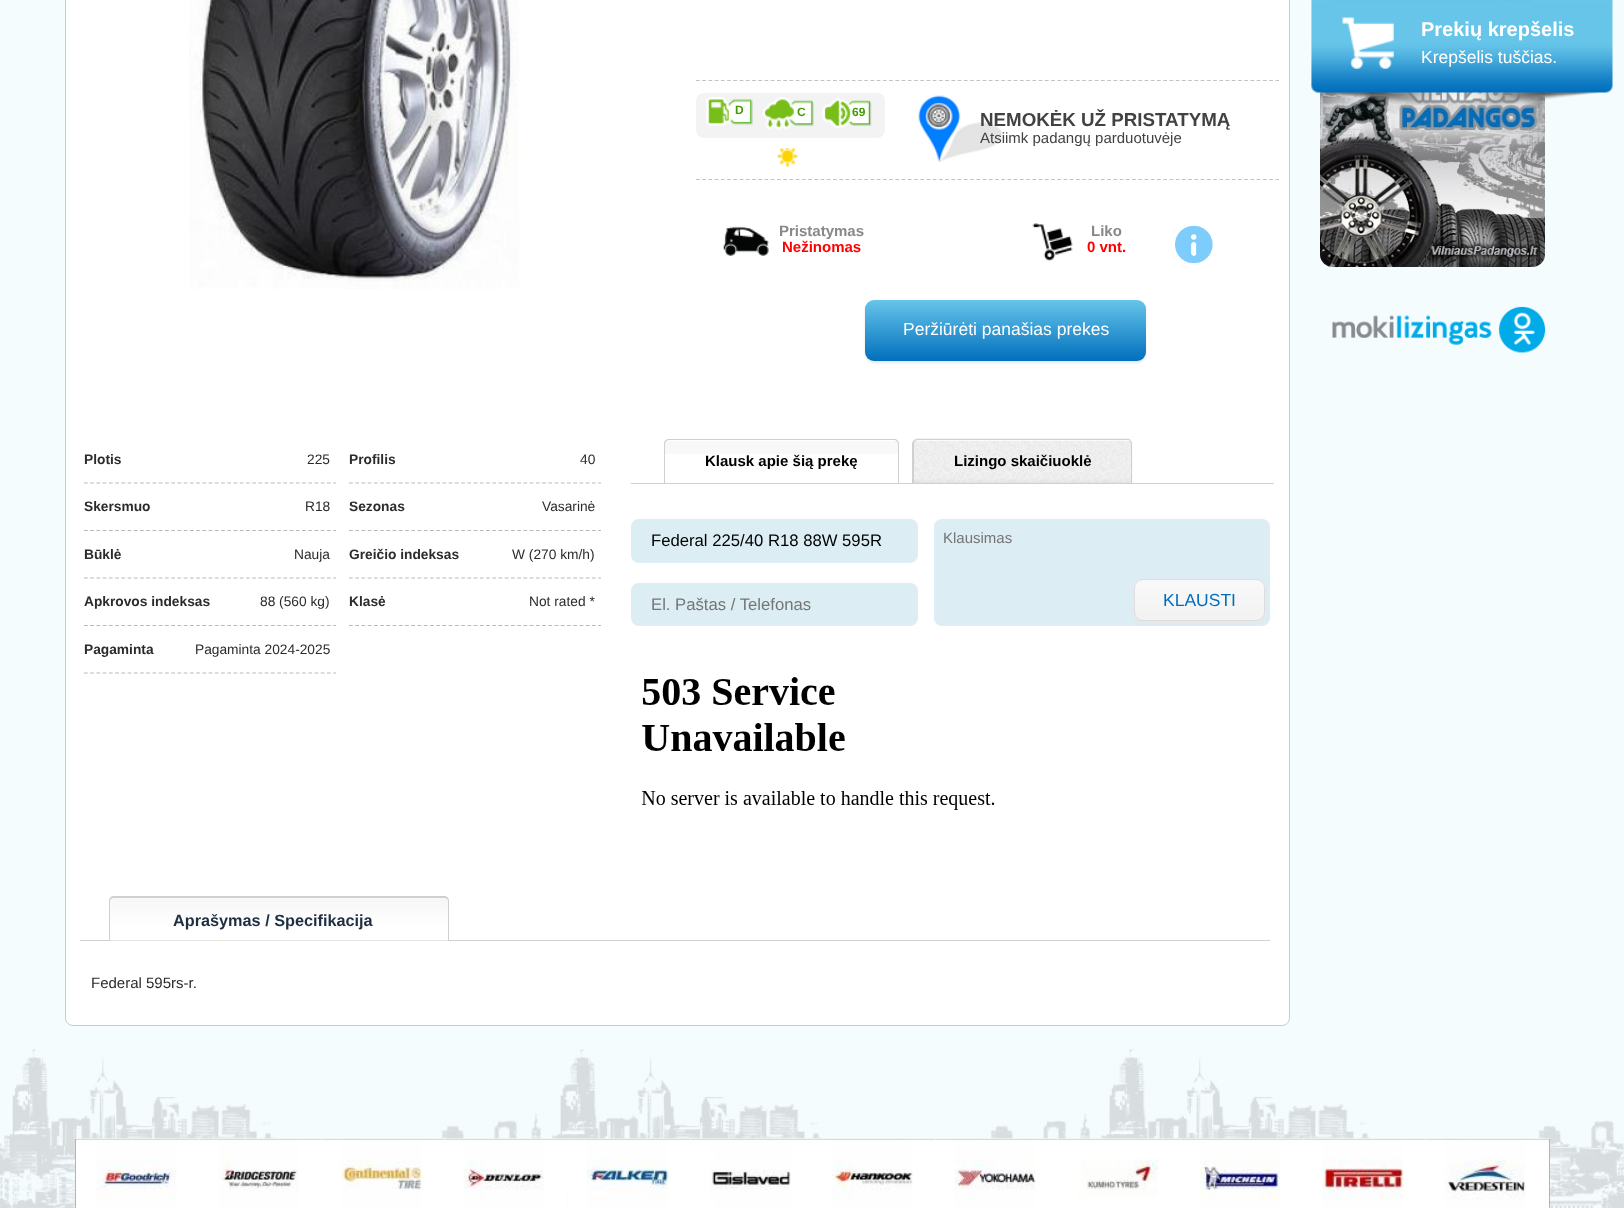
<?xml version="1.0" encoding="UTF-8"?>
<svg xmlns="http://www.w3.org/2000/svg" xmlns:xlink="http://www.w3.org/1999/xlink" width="1624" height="1208">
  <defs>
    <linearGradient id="g1" gradientUnits="userSpaceOnUse" x1="1006" y1="300" x2="1006" y2="361"><stop offset="0" stop-color="#66c5e9" /><stop offset="1" stop-color="#016fbd" /></linearGradient>
    <clipPath id="clip1"><rect x="1134" y="579" width="131" height="42" rx="9" /></clipPath>
    <linearGradient id="g2" gradientUnits="userSpaceOnUse" x1="1199" y1="580" x2="1199" y2="620"><stop offset="0" stop-color="#f9f9f9" /><stop offset="1" stop-color="#f2f2f2" /></linearGradient>
  </defs>
  <rect width="100%" height="100%" fill="#f5fcfe" />
  <image x="1320" y="0" width="225" height="267" xlink:href="image15.png" />
  <image x="1311" y="0" width="302" height="107" xlink:href="image1.png" />
  <image x="0" y="1049" width="1624" height="159" xlink:href="image2.png" />
  <rect x="65.5" y="-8.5" width="1224" height="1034" rx="7.5" fill="#ffffff" stroke="#c7cdcf" />
  <image x="189" y="0" width="330" height="289" xlink:href="image3.png" />
  <path d="M 696 80.5 h 583" fill="none" stroke="#c3c3c3" stroke-width="1.2" stroke-dasharray="3.75 2.48" />
  <path d="M 696 179.5 h 583" fill="none" stroke="#c3c3c3" stroke-width="1.2" stroke-dasharray="3.75 2.48" />
  <rect x="696" y="93" width="189" height="45" rx="8" fill="#f3f3f3" />
  <image x="706" y="97" width="47" height="29" xlink:href="image4.png" />
  <image x="762" y="97" width="52" height="33" xlink:href="image5.png" />
  <image x="822" y="98" width="50" height="30" xlink:href="image6.png" />
  <image x="777" y="148" width="21" height="20" xlink:href="image7.png" />
  <image x="918" y="95" width="85" height="68" xlink:href="image8.png" />
  <image x="723" y="226" width="46" height="30" xlink:href="image9.png" />
  <image x="1032" y="223" width="41" height="38" xlink:href="image10.png" />
  <image x="1175" y="225" width="38" height="39" xlink:href="image11.png" />
  <rect x="865" y="301" width="281" height="62" rx="9" fill="#e7e7e7" filter="blur(1px)" />
  <rect x="865" y="300" width="281" height="61" rx="9" fill="url(#g1)" />
  <path d="M 84 483 h 252" fill="none" stroke="#b9b9b9" stroke-width="1.2" stroke-dasharray="3.75 2.48" />
  <path d="M 349 483 h 252" fill="none" stroke="#b9b9b9" stroke-width="1.2" stroke-dasharray="3.75 2.48" />
  <path d="M 84 530.5 h 252" fill="none" stroke="#b9b9b9" stroke-width="1.2" stroke-dasharray="3.75 2.48" />
  <path d="M 349 530.5 h 252" fill="none" stroke="#b9b9b9" stroke-width="1.2" stroke-dasharray="3.75 2.48" />
  <path d="M 84 578 h 252" fill="none" stroke="#b9b9b9" stroke-width="1.2" stroke-dasharray="3.75 2.48" />
  <path d="M 349 578 h 252" fill="none" stroke="#b9b9b9" stroke-width="1.2" stroke-dasharray="3.75 2.48" />
  <path d="M 84 625.5 h 252" fill="none" stroke="#b9b9b9" stroke-width="1.2" stroke-dasharray="3.75 2.48" />
  <path d="M 349 625.5 h 252" fill="none" stroke="#b9b9b9" stroke-width="1.2" stroke-dasharray="3.75 2.48" />
  <path d="M 84 673 h 252" fill="none" stroke="#b9b9b9" stroke-width="1.2" stroke-dasharray="3.75 2.48" />
  <rect x="664" y="441" width="235" height="13" fill="#f8f8f8" />
  <rect x="631" y="483" width="643" height="1" fill="#d1d1d1" />
  <path d="M 669 439 h 225 c 3 0 5 2 5 5 v 40 h -235 v -40 c 0 -3 2 -5 5 -5 z m 0 1 h 225 c 2 0 4 2 4 4 v 40 h -233 v -40 c 0 -2 2 -4 4 -4 z" fill="#d0d0d0" fill-rule="evenodd" />
  <image x="912" y="438" width="221" height="45" xlink:href="image12.png" />
  <path d="M 918 439 h 210 c 2 0 4 2 4 5 v 40 h -220 v -40 c 0 -3 3 -5 6 -5 z m 0 1 h 210 c 2 0 3 2 3 4 v 40 h -217 v -40 c 0 -2 1 -4 4 -4 z" fill="#d0d0d0" fill-rule="evenodd" />
  <rect x="631" y="519" width="287" height="44" rx="8" fill="#dcedf4" />
  <rect x="631" y="583" width="287" height="43" rx="8" fill="#dcedf4" />
  <rect x="934" y="519" width="336" height="107" rx="8" fill="#dcedf4" />
  <rect x="1134" y="580" width="131" height="43" rx="9" fill="#e7e7e7" filter="blur(1px)" />
  <g clip-path="url(#clip1)">
    <rect x="1134" y="580" width="131" height="40" fill="url(#g2)" />
  </g>
  <rect x="1134.5" y="579.5" width="130" height="41" rx="8.5" fill="none" stroke="#e0dddd" />
  <image x="641" y="677" width="354" height="133" xlink:href="image13.png" />
  <rect x="80" y="940" width="1190" height="1" fill="#d1d1d1" />
  <image x="109" y="898" width="340" height="43" xlink:href="image14.png" />
  <path d="M 114 896 h 330 c 3 0 5 2 5 5 v 40 h -340 v -40 c 0 -3 2 -5 5 -5 z m 0 2 h 330 c 2 0 4 1 4 3 v 40 h -338 v -40 c 0 -2 2 -3 4 -3 z" fill="#d0d0d0" fill-rule="evenodd" />
  <image x="1332" y="306" width="213" height="47" xlink:href="image16.png" />
  <image x="75" y="1138" width="1475" height="70" xlink:href="image17.png" />
  <rect x="75.5" y="1139.5" width="1474" height="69" fill="none" stroke="#b4b4b4" />
  <image x="76" y="1139" width="124" height="69" xlink:href="image18.png" />
  <image x="198" y="1139" width="125" height="69" xlink:href="image19.png" />
  <image x="321" y="1139" width="124" height="69" xlink:href="image20.png" />
  <image x="443" y="1139" width="125" height="69" xlink:href="image21.png" />
  <image x="567" y="1139" width="125" height="69" xlink:href="image22.png" />
  <image x="690" y="1139" width="124" height="69" xlink:href="image23.png" />
  <image x="812" y="1139" width="125" height="69" xlink:href="image24.png" />
  <image x="935" y="1139" width="124" height="69" xlink:href="image25.png" />
  <image x="1057" y="1139" width="125" height="69" xlink:href="image26.png" />
  <image x="1180" y="1139" width="124" height="69" xlink:href="image27.png" />
  <image x="1302" y="1139" width="125" height="69" xlink:href="image28.png" />
  <image x="1425" y="1139" width="124" height="69" xlink:href="image29.png" />
  <text x="1421" y="36" style="font-family: Liberation Sans; font-size: 20px; font-weight: bold; fill: #ffffff">Prekių krepšelis</text>
  <text x="1421" y="63" style="font-family: Liberation Sans; font-size: 17.5px; fill: #ffffff">Krepšelis tuščias.</text>
  <text x="735" y="114" style="font-family: Liberation Sans; font-size: 12px; font-weight: bold; fill: #449b07">D</text>
  <text x="797" y="116" style="font-family: Liberation Sans; font-size: 12px; font-weight: bold; fill: #449b07">C</text>
  <text x="852" y="116" style="font-family: Liberation Sans; font-size: 12px; font-weight: bold; fill: #449b07">69</text>
  <text x="980" y="126" style="font-family: Liberation Sans; font-size: 18.75px; font-weight: bold; fill: #424242">NEMOKĖK UŽ PRISTATYMĄ</text>
  <text x="980" y="143" style="font-family: Liberation Sans; font-size: 15px; fill: #424242">Atsiimk padangų parduotuvėje</text>
  <text x="779" y="236" style="font-family: Liberation Sans; font-size: 15px; font-weight: bold; fill: #888888">Pristatymas</text>
  <text x="782" y="252" style="font-family: Liberation Sans; font-size: 15px; font-weight: bold; fill: #ff0000">Nežinomas</text>
  <text x="1091" y="236" style="font-family: Liberation Sans; font-size: 15px; font-weight: bold; fill: #888888">Liko</text>
  <text x="1087" y="252" style="font-family: Liberation Sans; font-size: 15px; font-weight: bold; fill: #ff0000">0 vnt.</text>
  <text x="903" y="335" style="font-family: Liberation Sans; font-size: 17.5px; fill: #ffffff">Peržiūrėti panašias prekes</text>
  <text x="84" y="464" style="font-family: Liberation Sans; font-size: 13.75px; font-weight: bold; fill: #2b2b2b">Plotis</text>
  <text x="307" y="464" style="font-family: Liberation Sans; font-size: 13.75px; fill: #2b2b2b">225</text>
  <text x="349" y="464" style="font-family: Liberation Sans; font-size: 13.75px; font-weight: bold; fill: #2b2b2b">Profilis</text>
  <text x="580" y="464" style="font-family: Liberation Sans; font-size: 13.75px; fill: #2b2b2b">40</text>
  <text x="84" y="511" style="font-family: Liberation Sans; font-size: 13.75px; font-weight: bold; fill: #2b2b2b">Skersmuo</text>
  <text x="305" y="511" style="font-family: Liberation Sans; font-size: 13.75px; fill: #2b2b2b">R18</text>
  <text x="349" y="511" style="font-family: Liberation Sans; font-size: 13.75px; font-weight: bold; fill: #2b2b2b">Sezonas</text>
  <text x="542" y="511" style="font-family: Liberation Sans; font-size: 13.75px; fill: #2b2b2b">Vasarinė</text>
  <text x="84" y="559" style="font-family: Liberation Sans; font-size: 13.75px; font-weight: bold; fill: #2b2b2b">Būklė</text>
  <text x="294" y="559" style="font-family: Liberation Sans; font-size: 13.75px; fill: #2b2b2b">Nauja</text>
  <text x="349" y="559" style="font-family: Liberation Sans; font-size: 13.75px; font-weight: bold; fill: #2b2b2b">Greičio indeksas</text>
  <text x="512" y="559" style="font-family: Liberation Sans; font-size: 13.75px; fill: #2b2b2b">W (270 km/h)</text>
  <text x="84" y="606" style="font-family: Liberation Sans; font-size: 13.75px; font-weight: bold; fill: #2b2b2b">Apkrovos indeksas</text>
  <text x="260" y="606" style="font-family: Liberation Sans; font-size: 13.75px; fill: #2b2b2b">88 (560 kg)</text>
  <text x="349" y="606" style="font-family: Liberation Sans; font-size: 13.75px; font-weight: bold; fill: #2b2b2b">Klasė</text>
  <text x="529" y="606" style="font-family: Liberation Sans; font-size: 13.75px; fill: #2b2b2b">Not rated *</text>
  <text x="84" y="654" style="font-family: Liberation Sans; font-size: 13.75px; font-weight: bold; fill: #2b2b2b">Pagaminta</text>
  <text x="195" y="654" style="font-family: Liberation Sans; font-size: 13.75px; fill: #2b2b2b">Pagaminta 2024-2025</text>
  <text x="705" y="466" style="font-family: Liberation Sans; font-size: 15px; font-weight: bold; fill: #000000">Klausk apie šią prekę</text>
  <text x="954" y="466" style="font-family: Liberation Sans; font-size: 15px; font-weight: bold; fill: #000000">Lizingo skaičiuoklė</text>
  <text x="651" y="546" style="font-family: Liberation Sans; font-size: 16.7px; fill: #000000">Federal 225/40 R18 88W 595R</text>
  <text x="651" y="610" style="font-family: Liberation Sans; font-size: 16.7px; fill: #757575">El. Paštas / Telefonas</text>
  <text x="943" y="543" style="font-family: Liberation Sans; font-size: 15px; fill: #757575">Klausimas</text>
  <text x="1163" y="606" style="font-family: Liberation Sans; font-size: 17.5px; fill: #006ebd">KLAUSTI</text>
  <text x="173" y="926" style="font-family: Liberation Sans; font-size: 16.25px; font-weight: bold; fill: #1e2e42">Aprašymas / Specifikacija</text>
  <text x="91" y="988" style="font-family: Liberation Sans; font-size: 15px; fill: #2b2b2b">Federal 595rs-r.</text>
</svg>
